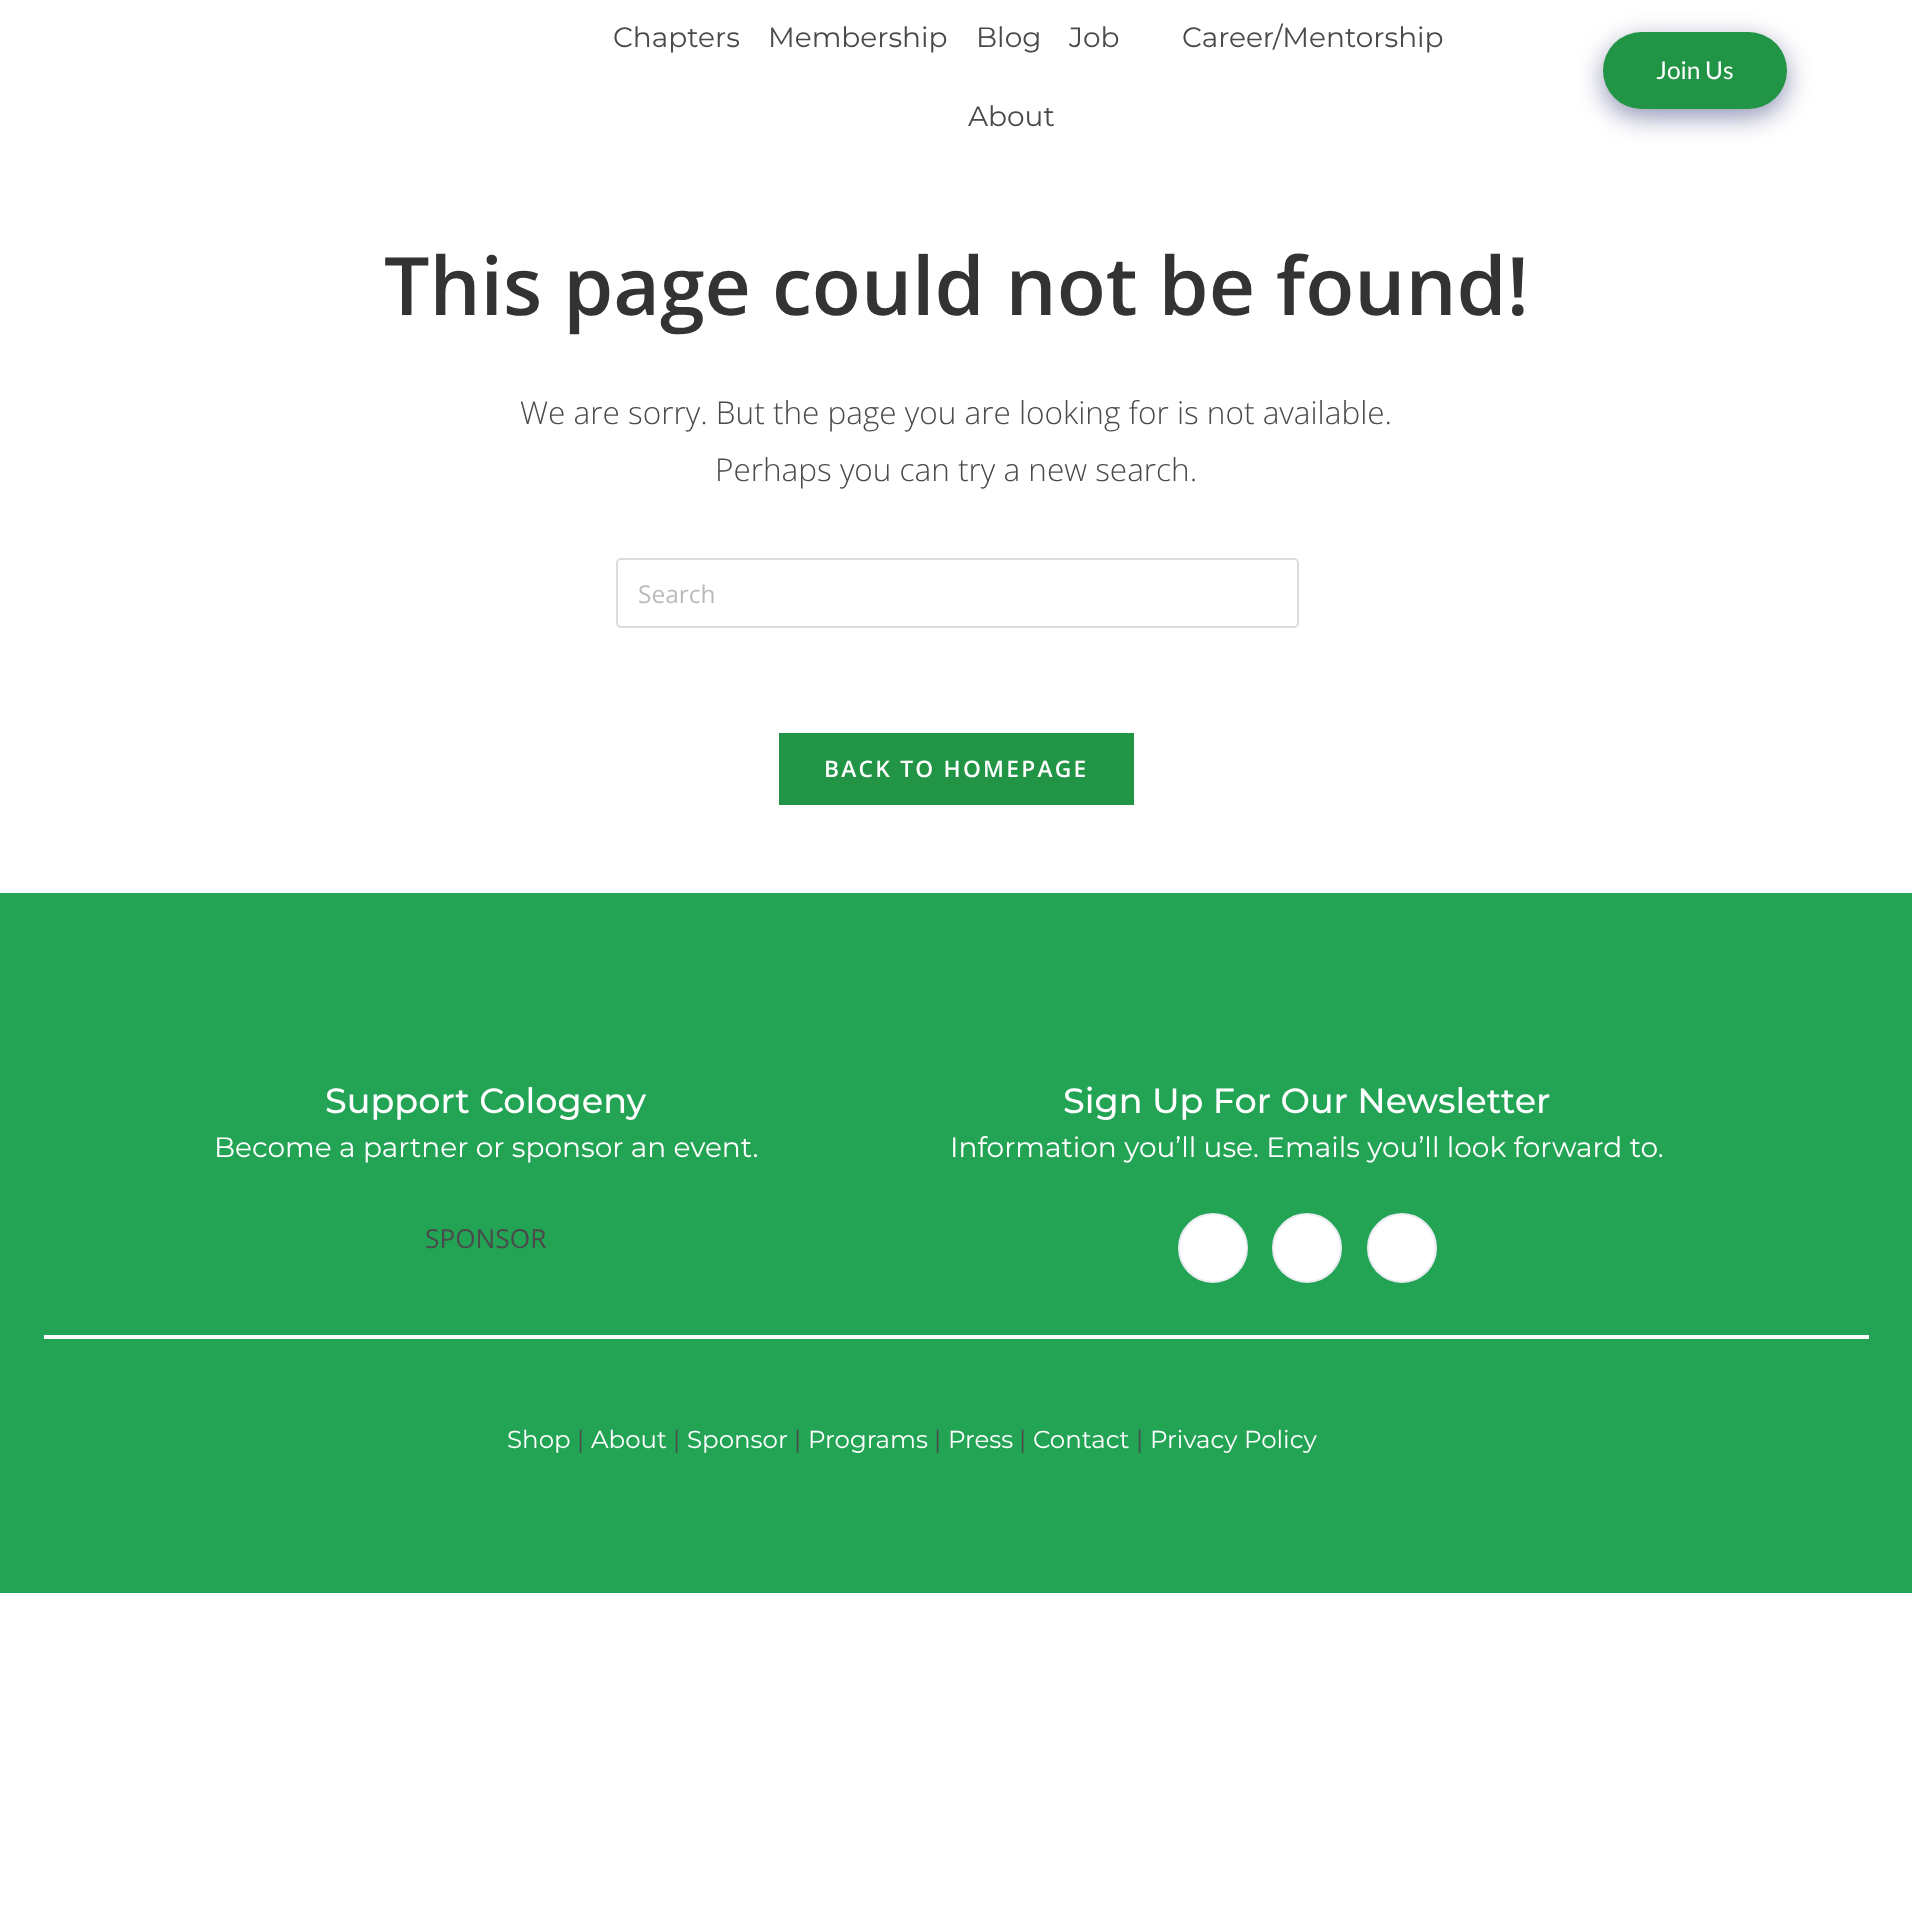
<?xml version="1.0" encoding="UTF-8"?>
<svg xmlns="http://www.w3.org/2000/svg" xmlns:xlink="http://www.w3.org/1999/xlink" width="1912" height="1908">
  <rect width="100%" height="100%" fill="#ffffff" />
  <rect x="1603" y="40" width="184" height="77" rx="38.5" fill="#273070" fill-opacity="0.51" filter="blur(13px)" />
  <rect x="1603" y="32" width="184" height="77" rx="38.5" fill="#219445" />
  <rect x="617" y="559" width="681" height="68" rx="4" fill="none" stroke="#dddddd" stroke-width="2" />
  <rect x="779" y="733" width="355" height="72" fill="#219445" />
  <rect y="893" width="1912" height="700" fill="#23a455" />
  <circle cx="1213" cy="1248" r="34" fill="#ffffff" stroke="#ebecf2" stroke-width="2" />
  <circle cx="1307" cy="1248" r="34" fill="#ffffff" stroke="#ebecf2" stroke-width="2" />
  <circle cx="1402" cy="1248" r="34" fill="#ffffff" stroke="#ebecf2" stroke-width="2" />
  <rect x="44" y="1335" width="1825" height="4" fill="#fcfafa" />
  <text x="613" y="47" style="font-family: Montserrat; font-size: 28px; fill: #4a4a4a">Chapters</text>
  <text x="768" y="47" style="font-family: Montserrat; font-size: 28px; fill: #4a4a4a">Membership</text>
  <text x="976" y="47" style="font-family: Montserrat; font-size: 28px; fill: #4a4a4a">Blog</text>
  <text x="1069" y="47" style="font-family: Montserrat; font-size: 28px; fill: #4a4a4a">Job</text>
  <text x="1182" y="47" style="font-family: Montserrat; font-size: 28px; fill: #4a4a4a">Career/Mentorship</text>
  <text x="968" y="126" style="font-family: Montserrat; font-size: 28px; fill: #4a4a4a">About</text>
  <text x="1656" y="79" style="font-family: Lato; font-size: 24.5px; fill: #ffffff">Join Us</text>
  <text x="384" y="315" style="font-family: Open Sans; font-size: 80.5px; font-weight: 600; fill: #333333">This page could not be found!</text>
  <text x="520" y="424" style="font-family: Open Sans; font-size: 31.5px; font-weight: 300; fill: #4a4a4a">We are sorry. But the page you are looking for is not available.</text>
  <text x="715" y="481" style="font-family: Open Sans; font-size: 31.5px; font-weight: 300; fill: #4a4a4a">Perhaps you can try a new search.</text>
  <text x="638" y="603" style="font-family: Open Sans; font-size: 24.5px; fill: #bababa">Search</text>
  <text x="824" y="777" style="font-family: Open Sans; font-size: 22.75px; font-weight: 600; letter-spacing: 2.25px; fill: #ffffff">BACK TO HOMEPAGE</text>
  <text x="325" y="1113" style="font-family: Montserrat; font-size: 35px; font-weight: 500; fill: #ffffff">Support Cologeny</text>
  <text x="214" y="1157" style="font-family: Montserrat; font-size: 28px; fill: #ffffff">Become a partner or sponsor an event.</text>
  <text x="425" y="1248" style="font-family: Open Sans; font-size: 26.25px; fill: #4a4a4a">SPONSOR</text>
  <text x="1063" y="1113" style="font-family: Montserrat; font-size: 35px; font-weight: 500; fill: #ffffff">Sign Up For Our Newsletter</text>
  <text x="950" y="1157" style="font-family: Montserrat; font-size: 28px; fill: #ffffff">Information you’ll use. Emails you’ll look forward to.</text>
  <text x="507" y="1448" style="font-family: Montserrat; font-size: 24.5px; fill: #ffffff">Shop</text>
  <text x="577" y="1448" style="font-family: Montserrat; font-size: 24.5px; fill: #4a4a4a">|</text>
  <text x="591" y="1448" style="font-family: Montserrat; font-size: 24.5px; fill: #ffffff">About</text>
  <text x="673" y="1448" style="font-family: Montserrat; font-size: 24.5px; fill: #4a4a4a">|</text>
  <text x="687" y="1448" style="font-family: Montserrat; font-size: 24.5px; fill: #ffffff">Sponsor</text>
  <text x="794" y="1448" style="font-family: Montserrat; font-size: 24.5px; fill: #4a4a4a">|</text>
  <text x="808" y="1448" style="font-family: Montserrat; font-size: 24.5px; fill: #ffffff">Programs</text>
  <text x="934" y="1448" style="font-family: Montserrat; font-size: 24.5px; fill: #4a4a4a">|</text>
  <text x="948" y="1448" style="font-family: Montserrat; font-size: 24.5px; fill: #ffffff">Press</text>
  <text x="1019" y="1448" style="font-family: Montserrat; font-size: 24.5px; fill: #4a4a4a">|</text>
  <text x="1033" y="1448" style="font-family: Montserrat; font-size: 24.5px; fill: #ffffff">Contact</text>
  <text x="1136" y="1448" style="font-family: Montserrat; font-size: 24.5px; fill: #4a4a4a">|</text>
  <text x="1150" y="1448" style="font-family: Montserrat; font-size: 24.5px; fill: #ffffff">Privacy Policy</text>
</svg>
